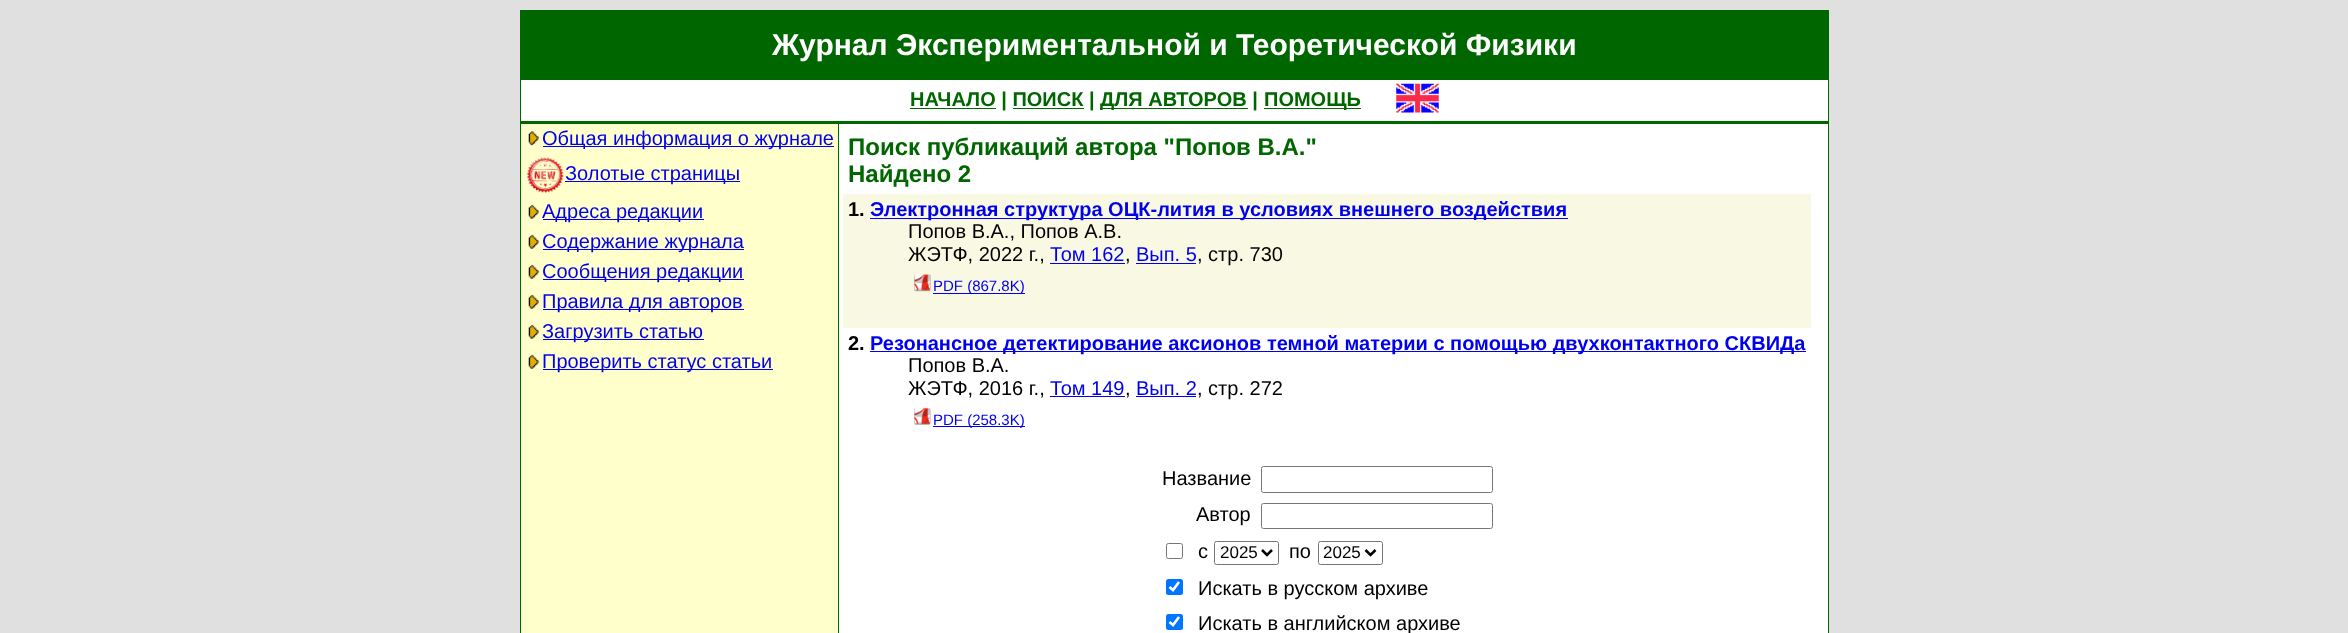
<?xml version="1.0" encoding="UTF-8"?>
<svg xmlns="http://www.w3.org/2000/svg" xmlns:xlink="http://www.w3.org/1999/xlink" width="2348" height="633">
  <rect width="100%" height="100%" fill="#e0e0e0" />
  <rect x="520" y="10" width="1309" height="623" fill="#006600" />
  <rect x="521" y="80" width="1307" height="553" fill="#ffffff" />
  <rect x="910" y="108" width="86" height="1" fill="#006600" />
  <rect x="1100" y="108" width="148" height="1" fill="#006600" />
  <rect x="1264" y="108" width="97" height="1" fill="#006600" />
  <rect x="1013" y="108" width="71" height="1" fill="#006600" />
  <image x="1396" y="83" width="43" height="30" xlink:href="image1.png" />
  <rect x="521" y="121" width="1307" height="3" fill="#006600" />
  <rect x="521" y="124" width="317" height="509" fill="#ffffcc" />
  <image x="528" y="131" width="11" height="15" xlink:href="image2.png" />
  <rect x="543" y="146" width="291" height="1" fill="#0000ee" />
  <image x="526" y="157" width="38" height="36" xlink:href="image3.png" />
  <rect x="565" y="181" width="175" height="1" fill="#0000ee" />
  <image x="528" y="204" width="11" height="15" xlink:href="image4.png" />
  <rect x="543" y="219" width="161" height="1" fill="#0000ee" />
  <image x="528" y="234" width="11" height="15" xlink:href="image4.png" />
  <rect x="543" y="249" width="201" height="1" fill="#0000ee" />
  <image x="528" y="264" width="11" height="15" xlink:href="image4.png" />
  <rect x="543" y="279" width="201" height="1" fill="#0000ee" />
  <image x="528" y="294" width="11" height="15" xlink:href="image5.png" />
  <rect x="543" y="309" width="201" height="1" fill="#0000ee" />
  <image x="528" y="324" width="11" height="15" xlink:href="image4.png" />
  <rect x="543" y="339" width="161" height="1" fill="#0000ee" />
  <image x="528" y="354" width="11" height="15" xlink:href="image4.png" />
  <rect x="543" y="369" width="230" height="1" fill="#0000ee" />
  <rect x="838" y="124" width="1" height="509" fill="#006600" />
  <rect x="843" y="194" width="968" height="134" fill="#f8f8e3" />
  <rect x="870" y="218" width="698" height="1" fill="#0000ee" />
  <rect x="1050" y="263" width="75" height="1" fill="#0000ee" />
  <rect x="1136" y="263" width="60" height="1" fill="#0000ee" />
  <image x="914" y="274" width="17" height="18" xlink:href="image6.png" />
  <rect x="933" y="293" width="92" height="1" fill="#0000ee" />
  <rect x="870" y="351" width="936" height="1" fill="#0000ee" />
  <rect x="1050" y="396" width="75" height="1" fill="#0000ee" />
  <rect x="1136" y="396" width="60" height="1" fill="#0000ee" />
  <image x="914" y="407" width="17" height="18" xlink:href="image7.png" />
  <rect x="933" y="426" width="92" height="1" fill="#0000ee" />
  <rect x="1261.5" y="466.5" width="231" height="26" rx="2" fill="none" stroke="#767676" />
  <rect x="1261.5" y="503.5" width="231" height="25" rx="2" fill="none" stroke="#767676" />
  <rect x="1166.5" y="543.5" width="16" height="15" rx="2" fill="none" stroke="#767676" />
  <rect x="1214.5" y="541.5" width="64" height="23" rx="2" fill="none" stroke="#767676" />
  <path d="M 1262 550 l 5 5 l 5 -5" fill="none" stroke="#000000" stroke-width="2.5" />
  <rect x="1318.5" y="541.5" width="64" height="23" rx="2" fill="none" stroke="#767676" />
  <path d="M 1365.5 550 l 5 5 l 5 -5" fill="none" stroke="#000000" stroke-width="2.5" />
  <rect x="1166" y="579" width="17" height="16" rx="2.5" fill="#0075ff" />
  <path d="M 1169.5 587 l 3.5 3 l 6 -8" fill="none" stroke="#ffffff" stroke-width="2.6" />
  <rect x="1166" y="614" width="17" height="16" rx="2.5" fill="#0075ff" />
  <path d="M 1169.5 622 l 3.5 3 l 6 -8" fill="none" stroke="#ffffff" stroke-width="2.6" />
  <text x="772" y="55" style="font-family: Liberation Sans; font-size: 30px; font-weight: bold; fill: #ffffff">Журнал Экспериментальной и Теоретической Физики</text>
  <text x="910" y="106" style="font-family: Liberation Sans; font-size: 20px; font-weight: bold; fill: #006600">НАЧАЛО | ПОИСК |</text>
  <text x="1100" y="106" style="font-family: Liberation Sans; font-size: 20px; font-weight: bold; fill: #006600">ДЛЯ АВТОРОВ |</text>
  <text x="1264" y="106" style="font-family: Liberation Sans; font-size: 20px; font-weight: bold; fill: #006600">ПОМОЩЬ</text>
  <text x="542" y="145" style="font-family: Liberation Sans; font-size: 20px; fill: #0000ee">Общая информация о журнале</text>
  <text x="565" y="180" style="font-family: Liberation Sans; font-size: 20px; fill: #0000ee">Золотые страницы</text>
  <text x="542" y="218" style="font-family: Liberation Sans; font-size: 20px; fill: #0000ee">Адреса редакции</text>
  <text x="542" y="248" style="font-family: Liberation Sans; font-size: 20px; fill: #0000ee">Содержание журнала</text>
  <text x="542" y="278" style="font-family: Liberation Sans; font-size: 20px; fill: #0000ee">Сообщения редакции</text>
  <text x="542" y="308" style="font-family: Liberation Sans; font-size: 20px; fill: #0000ee">Правила для авторов</text>
  <text x="542" y="338" style="font-family: Liberation Sans; font-size: 20px; fill: #0000ee">Загрузить статью</text>
  <text x="542" y="368" style="font-family: Liberation Sans; font-size: 20px; fill: #0000ee">Проверить статус статьи</text>
  <text x="848" y="155" style="font-family: Liberation Sans; font-size: 24px; font-weight: bold; fill: #006600">Поиск публикаций автора "Попов В.А."</text>
  <text x="848" y="182" style="font-family: Liberation Sans; font-size: 24px; font-weight: bold; fill: #006600">Найдено 2</text>
  <text x="848" y="216" style="font-family: Liberation Sans; font-size: 20px; font-weight: bold; fill: #000000">1.</text>
  <text x="870" y="216" style="font-family: Liberation Sans; font-size: 20px; font-weight: bold; fill: #0000ee">Электронная структура ОЦК-лития в условиях внешнего воздействия</text>
  <text x="908" y="238" style="font-family: Liberation Sans; font-size: 20px; fill: #000000">Попов В.А., Попов А.В.</text>
  <text x="908" y="261" style="font-family: Liberation Sans; font-size: 20px; fill: #000000">ЖЭТФ, 2022 г.,</text>
  <text x="1050" y="261" style="font-family: Liberation Sans; font-size: 20px; fill: #0000ee">Том 162</text>
  <text x="1125" y="261" style="font-family: Liberation Sans; font-size: 20px; fill: #000000">,</text>
  <text x="1136" y="261" style="font-family: Liberation Sans; font-size: 20px; fill: #0000ee">Вып. 5</text>
  <text x="1197" y="261" style="font-family: Liberation Sans; font-size: 20px; fill: #000000">, стр. 730</text>
  <text x="933" y="291" style="font-family: Liberation Sans; font-size: 15px; fill: #0000ee">PDF (867.8K)</text>
  <text x="848" y="350" style="font-family: Liberation Sans; font-size: 20px; font-weight: bold; fill: #000000">2.</text>
  <text x="870" y="350" style="font-family: Liberation Sans; font-size: 20px; font-weight: bold; fill: #0000ee">Резонансное детектирование аксионов темной материи с помощью двухконтактного СКВИДа</text>
  <text x="908" y="372" style="font-family: Liberation Sans; font-size: 20px; fill: #000000">Попов В.А.</text>
  <text x="908" y="395" style="font-family: Liberation Sans; font-size: 20px; fill: #000000">ЖЭТФ, 2016 г.,</text>
  <text x="1050" y="395" style="font-family: Liberation Sans; font-size: 20px; fill: #0000ee">Том 149</text>
  <text x="1125" y="395" style="font-family: Liberation Sans; font-size: 20px; fill: #000000">,</text>
  <text x="1136" y="395" style="font-family: Liberation Sans; font-size: 20px; fill: #0000ee">Вып. 2</text>
  <text x="1197" y="395" style="font-family: Liberation Sans; font-size: 20px; fill: #000000">, стр. 272</text>
  <text x="933" y="425" style="font-family: Liberation Sans; font-size: 15px; fill: #0000ee">PDF (258.3K)</text>
  <text x="1162" y="485" style="font-family: Liberation Sans; font-size: 20px; fill: #000000">Название</text>
  <text x="1196" y="521" style="font-family: Liberation Sans; font-size: 20px; fill: #000000">Автор</text>
  <text x="1198" y="558" style="font-family: Liberation Sans; font-size: 20px; fill: #000000">с</text>
  <text x="1220" y="558" style="font-family: Liberation Sans; font-size: 17px; fill: #000000">2025</text>
  <text x="1289" y="558" style="font-family: Liberation Sans; font-size: 20px; fill: #000000">по</text>
  <text x="1323" y="558" style="font-family: Liberation Sans; font-size: 17px; fill: #000000">2025</text>
  <text x="1198" y="595" style="font-family: Liberation Sans; font-size: 20px; fill: #000000">Искать в русском архиве</text>
  <text x="1198" y="630" style="font-family: Liberation Sans; font-size: 20px; fill: #000000">Искать в английском архиве</text>
</svg>
